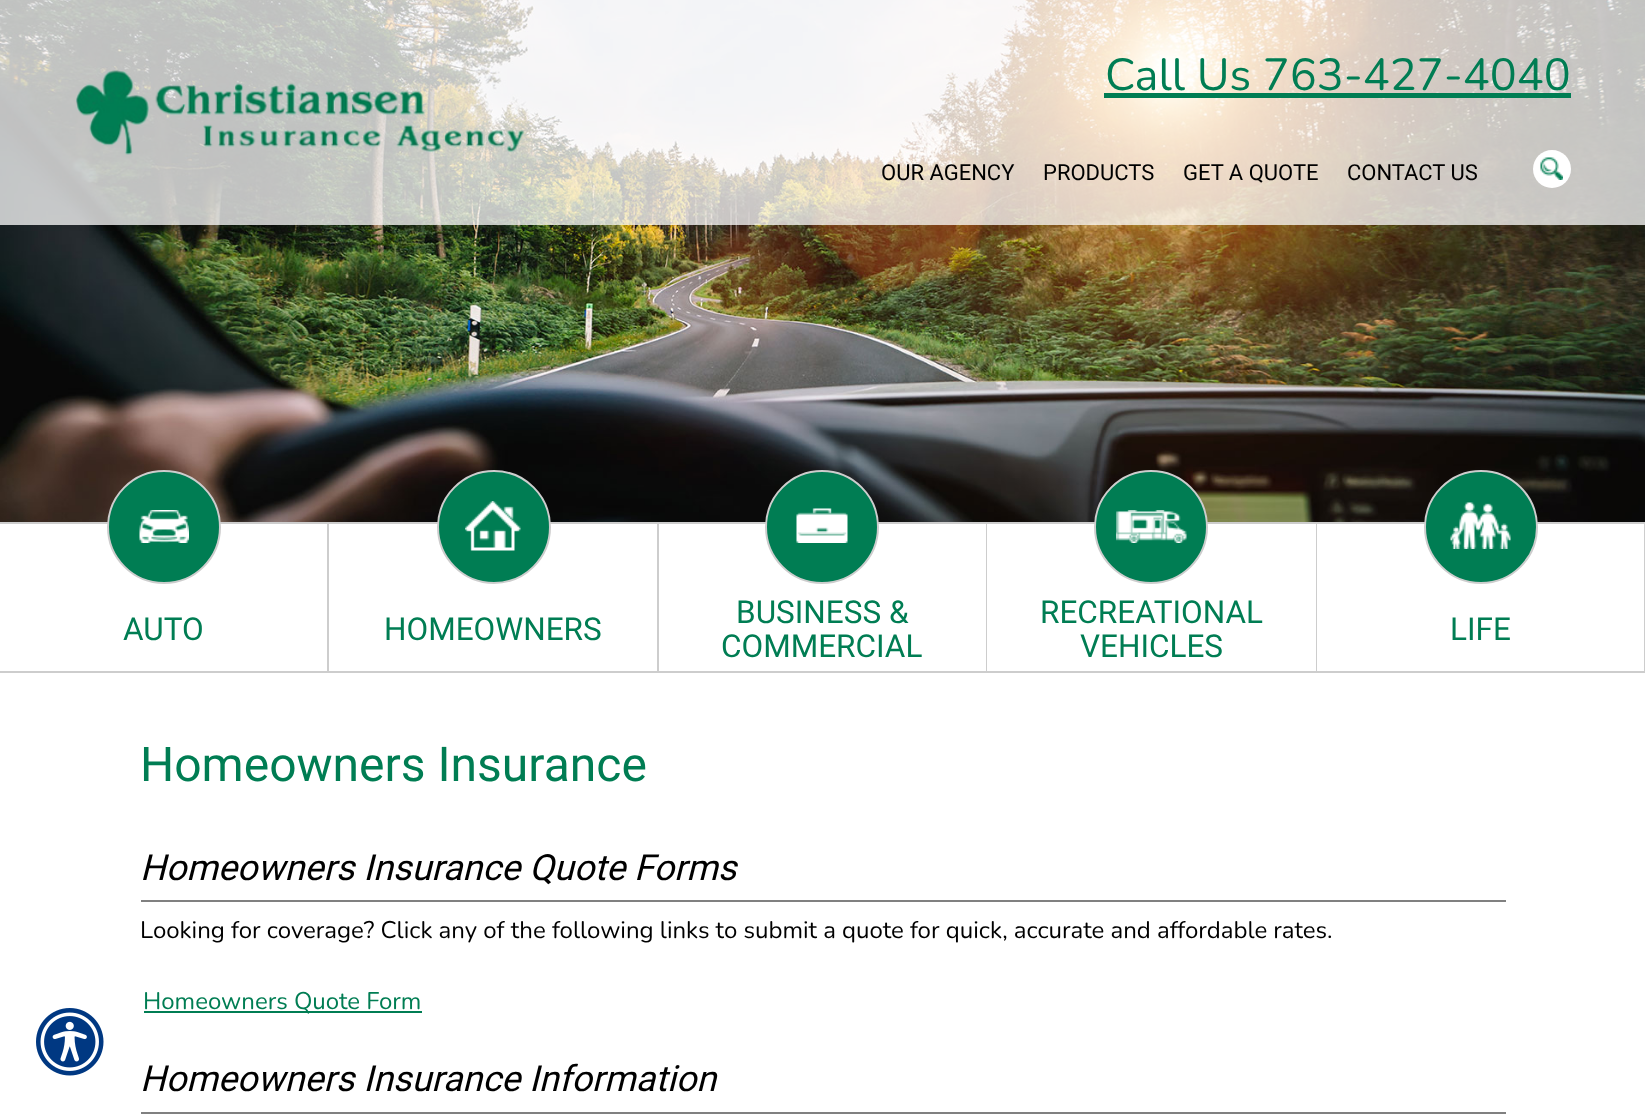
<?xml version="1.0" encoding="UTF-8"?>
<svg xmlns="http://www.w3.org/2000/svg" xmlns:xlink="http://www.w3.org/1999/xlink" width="1645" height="1118">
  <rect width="100%" height="100%" fill="#ffffff" />
  <image x="36" y="1008" width="68" height="68" xlink:href="image1.png" />
  <image x="0" y="0" width="1645" height="522" xlink:href="image2.png" />
  <rect width="1645" height="225" fill="#ffffff" fill-opacity="0.75" />
  <image x="76" y="70" width="449" height="85" xlink:href="image3.png" />
  <rect x="1104" y="93" width="467" height="5" fill="#007d53" />
  <circle cx="1552" cy="169" r="19" fill="#ffffff" />
  <image x="1540" y="157" width="23" height="23" xlink:href="image4.png" />
  <rect y="522" width="1645" height="2" fill="#cdcdcd" />
  <rect x="327" y="522" width="2" height="150" fill="#cdcdcd" />
  <rect y="671" width="329" height="2" fill="#cdcdcd" />
  <circle cx="164" cy="527" r="56" fill="#007d53" stroke="#cdcdcd" stroke-width="2" />
  <image x="139" y="510" width="50" height="33" xlink:href="image5.png" />
  <rect x="657" y="522" width="2" height="150" fill="#cdcdcd" />
  <rect x="329" y="671" width="330" height="2" fill="#cdcdcd" />
  <circle cx="494" cy="527" r="56" fill="#007d53" stroke="#cdcdcd" stroke-width="2" />
  <image x="465" y="501" width="56" height="50" xlink:href="image6.png" />
  <rect x="986" y="522" width="1" height="150" fill="#cdcdcd" />
  <rect x="659" y="671" width="328" height="2" fill="#cdcdcd" />
  <circle cx="822" cy="527" r="56" fill="#007d53" stroke="#cdcdcd" stroke-width="2" />
  <image x="796" y="508" width="52" height="35" xlink:href="image7.png" />
  <rect x="1316" y="522" width="1" height="150" fill="#cdcdcd" />
  <rect x="987" y="671" width="330" height="2" fill="#cdcdcd" />
  <circle cx="1151" cy="527" r="56" fill="#007d53" stroke="#cdcdcd" stroke-width="2" />
  <image x="1116" y="510" width="71" height="33" xlink:href="image8.png" />
  <rect x="1644" y="522" width="1" height="150" fill="#cdcdcd" />
  <rect x="1317" y="671" width="328" height="2" fill="#cdcdcd" />
  <circle cx="1481" cy="527" r="56" fill="#007d53" stroke="#cdcdcd" stroke-width="2" />
  <image x="1450" y="502" width="61" height="47" xlink:href="image9.png" />
  <rect x="141" y="900" width="1365" height="2" fill="#808080" />
  <rect x="144" y="1011" width="278" height="2" fill="#007d53" />
  <rect x="141" y="1112" width="1365" height="2" fill="#808080" />
  <text x="1105" y="90" style="font-family: Nunito; font-size: 45px; font-weight: 200; fill: #007d53">Call Us 763-427-4040</text>
  <text x="881" y="180" style="font-family: Roboto; font-size: 22px; fill: #000000">OUR AGENCY</text>
  <text x="1043" y="180" style="font-family: Roboto; font-size: 22px; fill: #000000">PRODUCTS</text>
  <text x="1183" y="180" style="font-family: Roboto; font-size: 22px; fill: #000000">GET A QUOTE</text>
  <text x="1347" y="180" style="font-family: Roboto; font-size: 22px; fill: #000000">CONTACT US</text>
  <text x="123" y="640" style="font-family: Roboto; font-size: 31.5px; fill: #007d53">AUTO</text>
  <text x="384" y="640" style="font-family: Roboto; font-size: 31.5px; fill: #007d53">HOMEOWNERS</text>
  <text x="736" y="623" style="font-family: Roboto; font-size: 31.5px; fill: #007d53">BUSINESS &amp;</text>
  <text x="721" y="657" style="font-family: Roboto; font-size: 31.5px; fill: #007d53">COMMERCIAL</text>
  <text x="1040" y="623" style="font-family: Roboto; font-size: 31.5px; fill: #007d53">RECREATIONAL</text>
  <text x="1080" y="657" style="font-family: Roboto; font-size: 31.5px; fill: #007d53">VEHICLES</text>
  <text x="1450" y="640" style="font-family: Roboto; font-size: 31.5px; fill: #007d53">LIFE</text>
  <text x="140" y="781" style="font-family: Roboto; font-size: 48px; fill: #007d53">Homeowners Insurance</text>
  <text x="140" y="880" style="font-family: Roboto; font-size: 36px; font-style: italic; fill: #000000">Homeowners Insurance Quote Forms</text>
  <text x="140" y="938" style="font-family: Nunito; font-size: 24px; font-weight: 200; fill: #000000">Looking for coverage? Click any of the following links to submit a quote for quick, accurate and affordable rates.</text>
  <text x="143" y="1009" style="font-family: Nunito; font-size: 24px; font-weight: 200; fill: #007d53">Homeowners Quote Form</text>
  <text x="140" y="1091" style="font-family: Roboto; font-size: 36px; font-style: italic; fill: #000000">Homeowners Insurance Information</text>
</svg>
